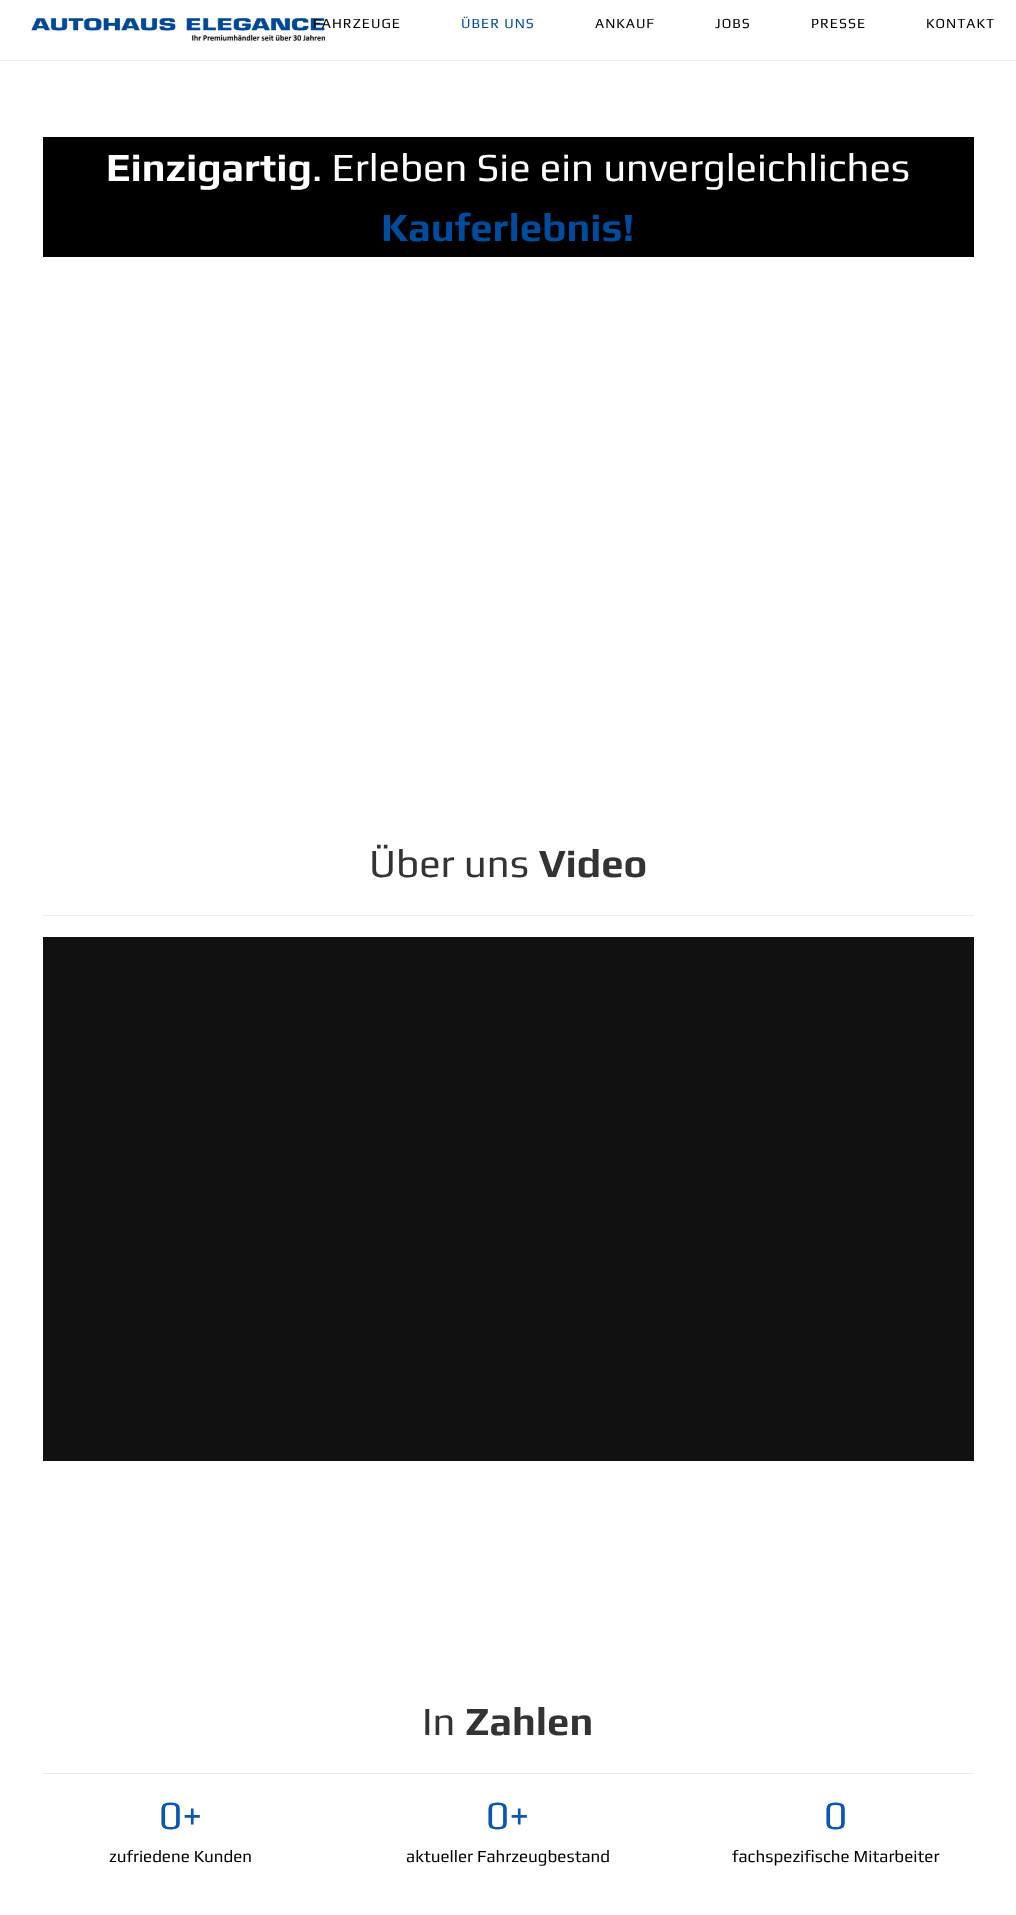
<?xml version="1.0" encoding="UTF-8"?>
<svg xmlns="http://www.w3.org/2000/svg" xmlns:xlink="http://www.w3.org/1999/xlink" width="1016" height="1915">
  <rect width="100%" height="100%" fill="#ffffff" />
  <rect y="60" width="1016" height="1" fill="#ebebeb" />
  <image x="30" y="18" width="296" height="23" xlink:href="image1.png" />
  <rect x="43" y="137" width="931" height="120" fill="#000000" />
  <rect x="43" y="915" width="931" height="1" fill="#ebebeb" />
  <rect x="43" y="937" width="931" height="524" fill="#111111" />
  <rect x="43" y="1773" width="931" height="1" fill="#ebebeb" />
  <text x="313" y="28" style="font-family: Play; font-size: 14px; letter-spacing: 1px; fill: #000000">FAHRZEUGE</text>
  <text x="461" y="28" style="font-family: Play; font-size: 14px; letter-spacing: 1px; fill: #004c9e">ÜBER UNS</text>
  <text x="595" y="28" style="font-family: Play; font-size: 14px; letter-spacing: 1px; fill: #000000">ANKAUF</text>
  <text x="715" y="28" style="font-family: Play; font-size: 14px; letter-spacing: 1px; fill: #000000">JOBS</text>
  <text x="811" y="28" style="font-family: Play; font-size: 14px; letter-spacing: 1px; fill: #000000">PRESSE</text>
  <text x="926" y="28" style="font-family: Play; font-size: 14px; letter-spacing: 1px; fill: #000000">KONTAKT</text>
  <text x="106" y="181" style="font-family: Play; font-size: 40px; font-weight: bold; fill: #ffffff">Einzigartig</text>
  <text x="312" y="181" style="font-family: Play; font-size: 40px; fill: #ffffff">. Erleben Sie ein unvergleichliches</text>
  <text x="381" y="241" style="font-family: Play; font-size: 40px; font-weight: bold; fill: #004c9e">Kauferlebnis!</text>
  <text x="369" y="877" style="font-family: Play; font-size: 40px; fill: #333333">Über uns</text>
  <text x="539" y="877" style="font-family: Play; font-size: 40px; font-weight: bold; fill: #333333">Video</text>
  <text x="422" y="1735" style="font-family: Play; font-size: 40px; fill: #333333">In</text>
  <text x="465" y="1735" style="font-family: Play; font-size: 40px; font-weight: bold; fill: #333333">Zahlen</text>
  <text x="159" y="1829" style="font-family: Play; font-size: 40px; fill: #0757b3">0+</text>
  <text x="109" y="1862" style="font-family: Play; font-size: 17px; fill: #000000">zufriedene Kunden</text>
  <text x="486" y="1829" style="font-family: Play; font-size: 40px; fill: #0757b3">0+</text>
  <text x="406" y="1862" style="font-family: Play; font-size: 17px; fill: #000000">aktueller Fahrzeugbestand</text>
  <text x="824" y="1829" style="font-family: Play; font-size: 40px; fill: #0757b3">0</text>
  <text x="732" y="1862" style="font-family: Play; font-size: 17px; fill: #000000">fachspezifische Mitarbeiter</text>
</svg>
